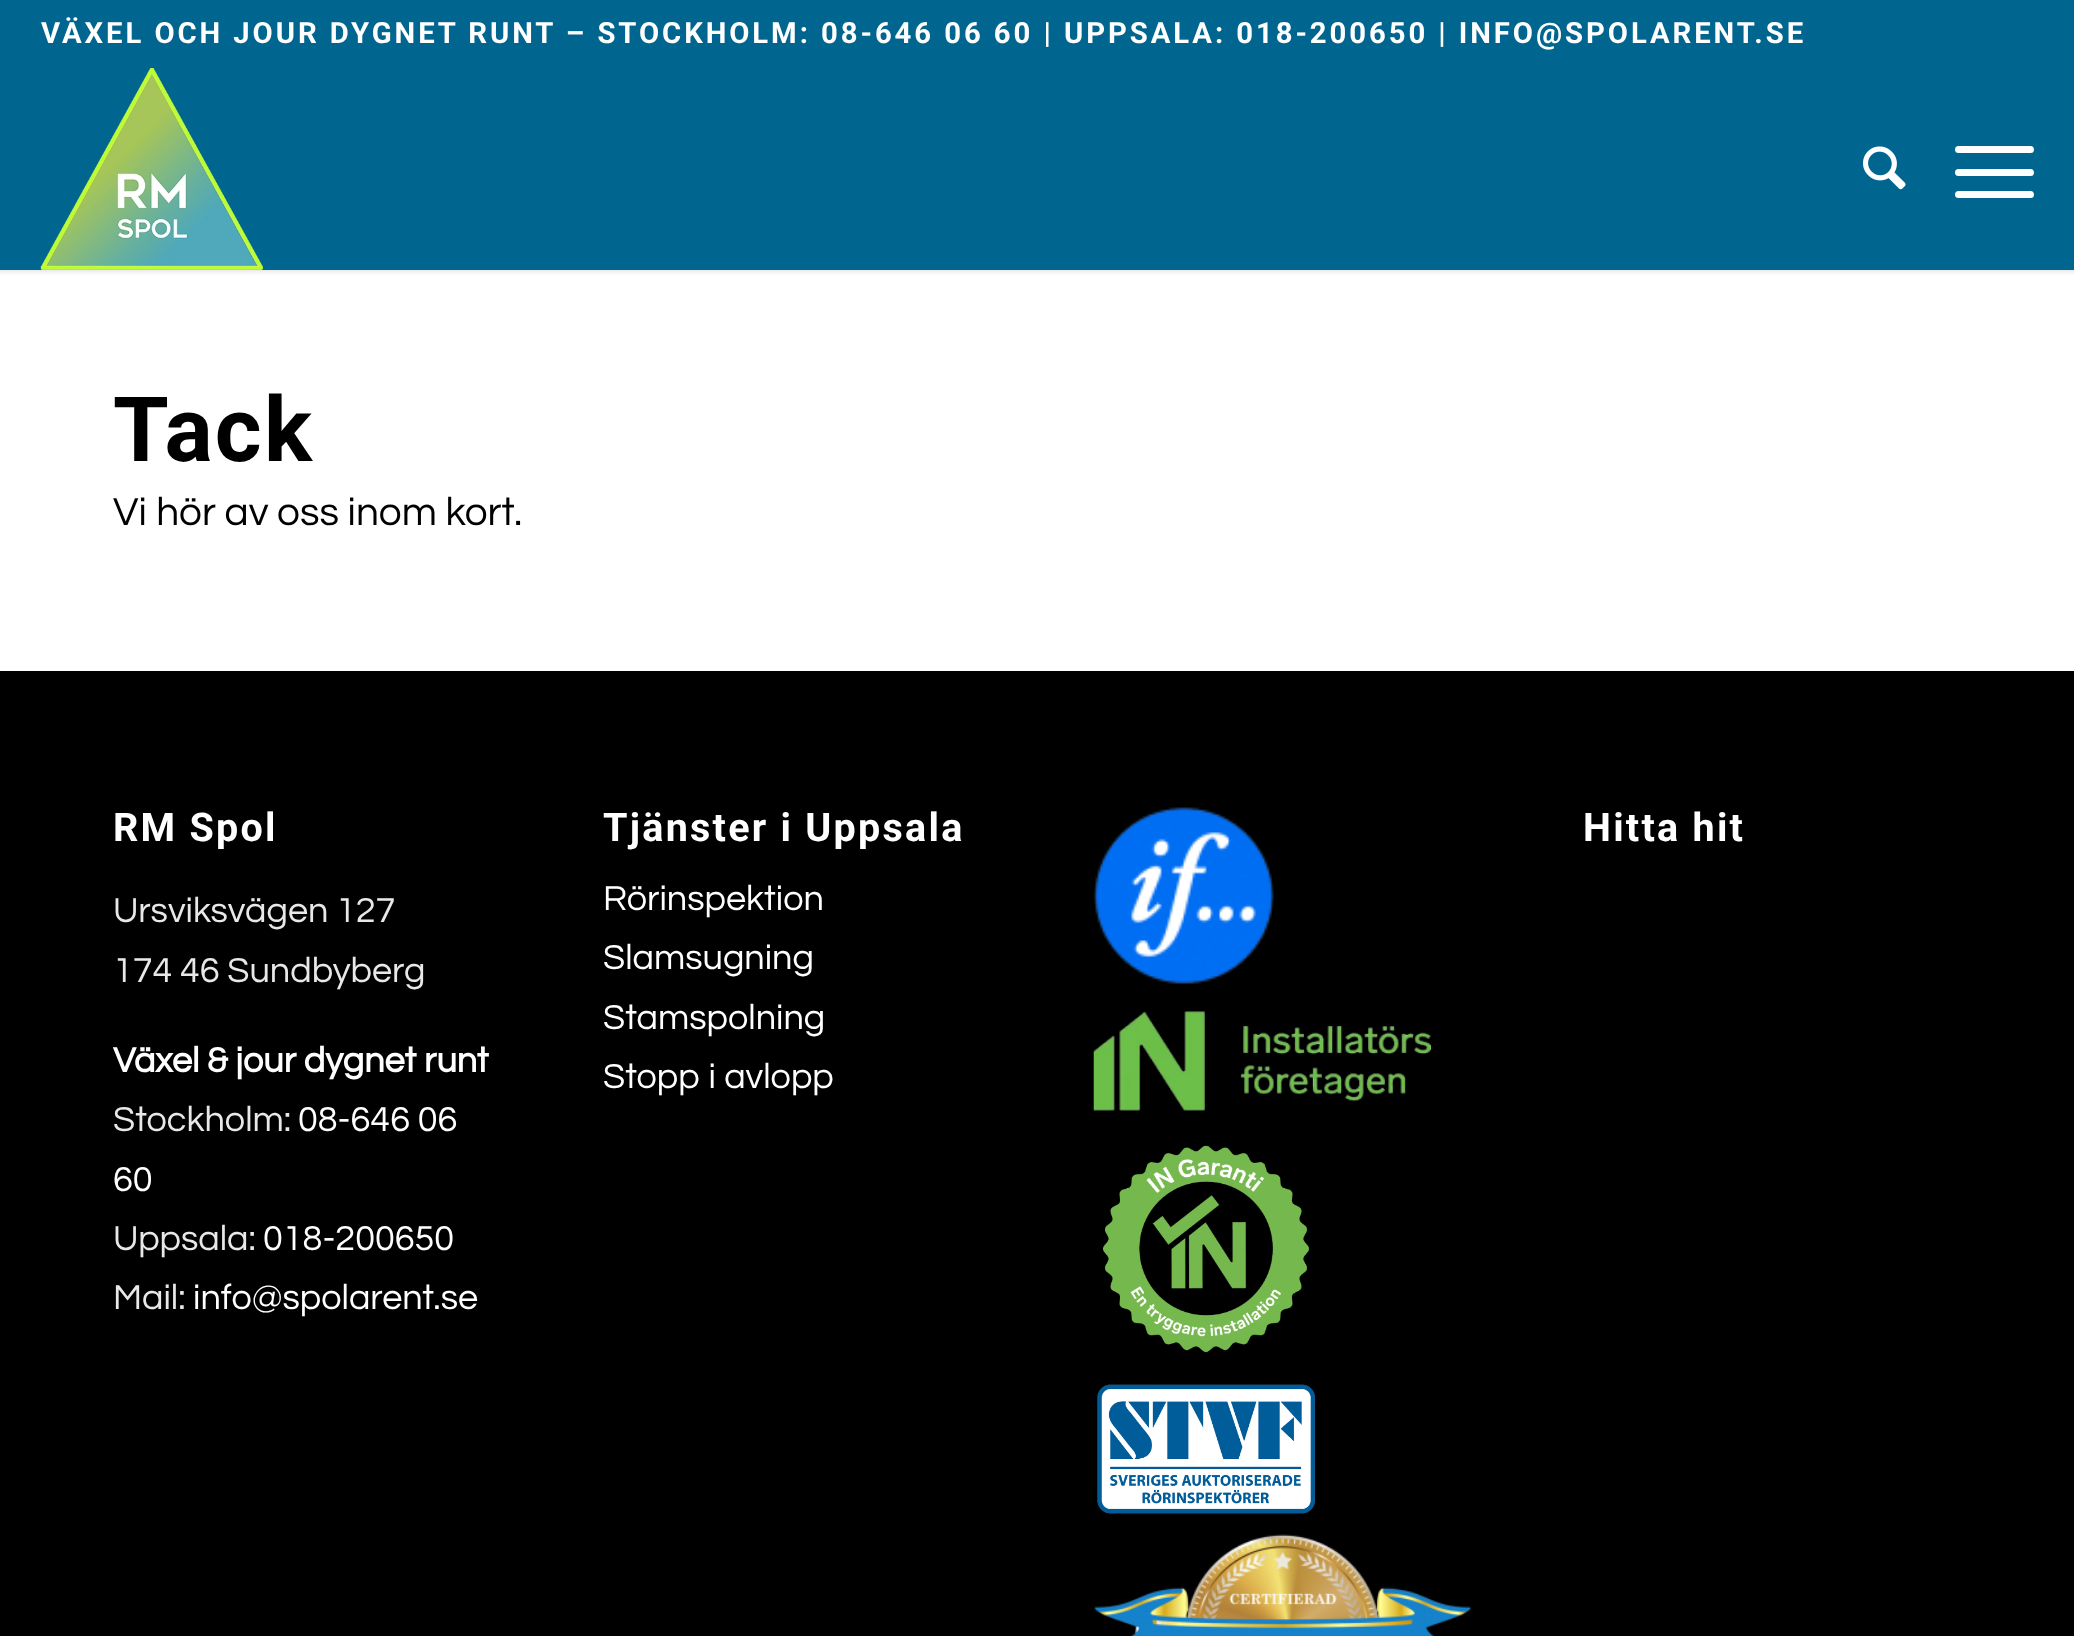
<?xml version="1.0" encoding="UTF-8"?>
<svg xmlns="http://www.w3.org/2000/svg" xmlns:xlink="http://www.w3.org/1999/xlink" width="2074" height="1636">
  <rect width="100%" height="100%" fill="#ffffff" />
  <rect x="-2" y="-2" width="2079" height="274" fill="#000000" fill-opacity="0.1" filter="blur(2px)" />
  <rect width="2074" height="270" fill="#00668f" />
  <image x="40" y="68" width="224" height="202" xlink:href="image1.png" />
  <image x="1863" y="146" width="43" height="44" xlink:href="image2.png" />
  <rect x="1955" y="169" width="79" height="7" rx="3.5" fill="#ffffff" />
  <rect x="1955" y="146" width="79" height="7" rx="3.5" fill="#ffffff" />
  <rect x="1955" y="191" width="79" height="7" rx="3.5" fill="#ffffff" />
  <rect y="671" width="2074" height="965" fill="#000000" />
  <image x="1093" y="807" width="181" height="177" xlink:href="image3.png" />
  <image x="1093" y="1011" width="338" height="100" xlink:href="image4.png" />
  <image x="1103" y="1145" width="206" height="208" xlink:href="image5.png" />
  <image x="1097" y="1384" width="218" height="130" xlink:href="image6.png" />
  <image x="1094" y="1534" width="377" height="102" xlink:href="image7.png" />
  <text x="41" y="43" style="font-family: Roboto; font-size: 29.25px; font-weight: bold; letter-spacing: 2.93px; fill: #ffffff">VÄXEL OCH JOUR DYGNET RUNT – STOCKHOLM: 08-646 06 60 | UPPSALA: 018-200650 | INFO@SPOLARENT.SE</text>
  <text x="113" y="461" style="font-family: Roboto; font-size: 90px; font-weight: bold; letter-spacing: 2.25px; fill: #000000">Tack</text>
  <text x="113" y="525" style="font-family: Questrial; font-size: 40.5px; fill: #000000">Vi hör av oss inom kort.</text>
  <text x="113" y="841" style="font-family: Roboto; font-size: 39.5px; font-weight: bold; letter-spacing: 2.25px; fill: #ffffff">RM Spol</text>
  <text x="113" y="922" style="font-family: Questrial; font-size: 36px; fill: #e8e8e8">Ursviksvägen 127</text>
  <text x="113" y="982" style="font-family: Questrial; font-size: 36px; fill: #e8e8e8">174 46 Sundbyberg</text>
  <text x="113" y="1072" style="font-family: Questrial; font-size: 36px; font-weight: bold; fill: #ffffff">Växel &amp; jour dygnet runt</text>
  <text x="113" y="1131" style="font-family: Questrial; font-size: 36px; fill: #e8e8e8">Stockholm:</text>
  <text x="298" y="1131" style="font-family: Questrial; font-size: 36px; fill: #ffffff">08-646 06</text>
  <text x="113" y="1191" style="font-family: Questrial; font-size: 36px; fill: #ffffff">60</text>
  <text x="113" y="1250" style="font-family: Questrial; font-size: 36px; fill: #e8e8e8">Uppsala:</text>
  <text x="263" y="1250" style="font-family: Questrial; font-size: 36px; fill: #ffffff">018-200650</text>
  <text x="113" y="1309" style="font-family: Questrial; font-size: 36px; fill: #e8e8e8">Mail:</text>
  <text x="193" y="1309" style="font-family: Questrial; font-size: 36px; fill: #ffffff">info@spolarent.se</text>
  <text x="603" y="841" style="font-family: Roboto; font-size: 39.5px; font-weight: bold; letter-spacing: 2.25px; fill: #ffffff">Tjänster i Uppsala</text>
  <text x="603" y="910" style="font-family: Questrial; font-size: 36px; fill: #ffffff">Rörinspektion</text>
  <text x="603" y="969" style="font-family: Questrial; font-size: 36px; fill: #ffffff">Slamsugning</text>
  <text x="603" y="1029" style="font-family: Questrial; font-size: 36px; fill: #ffffff">Stamspolning</text>
  <text x="603" y="1088" style="font-family: Questrial; font-size: 36px; fill: #ffffff">Stopp i avlopp</text>
  <text x="1583" y="841" style="font-family: Roboto; font-size: 39.5px; font-weight: bold; letter-spacing: 2.25px; fill: #ffffff">Hitta hit</text>
</svg>
